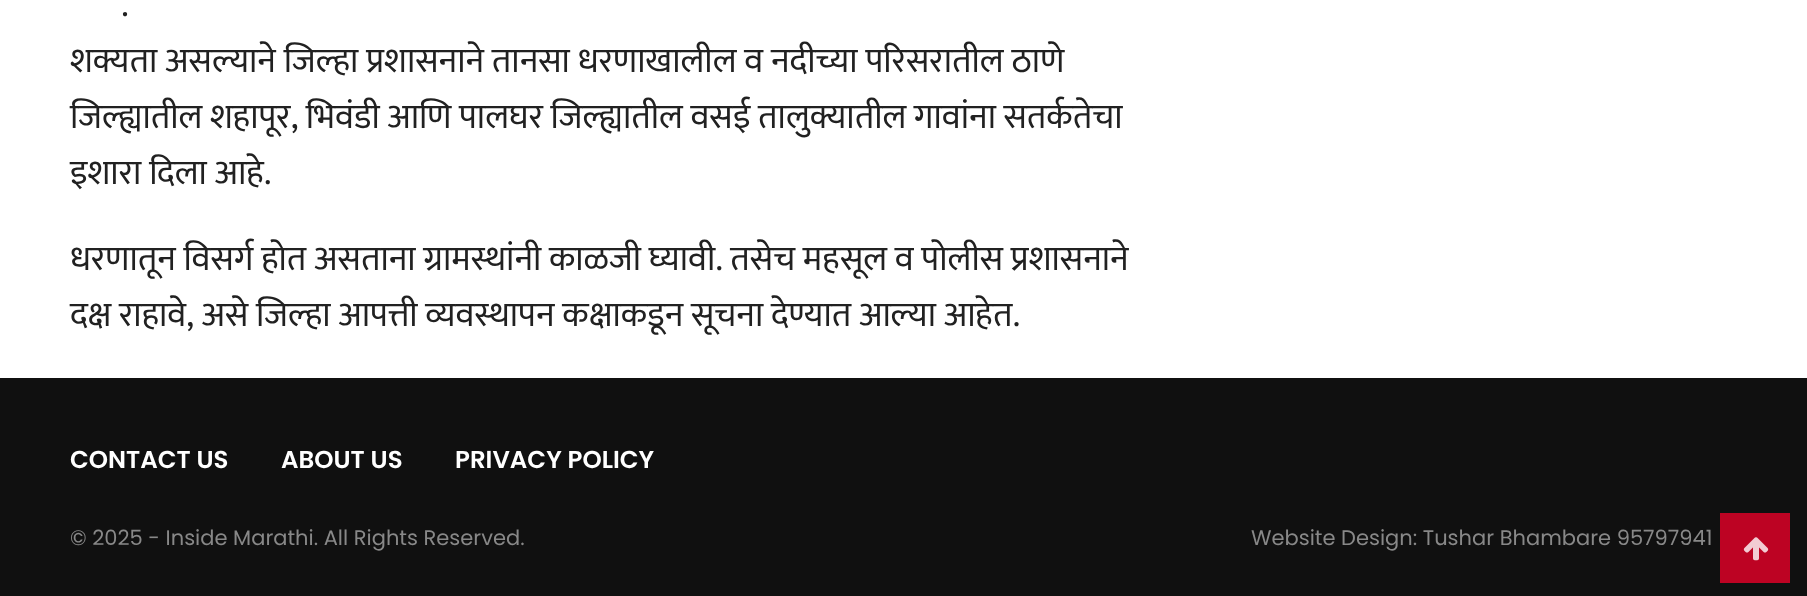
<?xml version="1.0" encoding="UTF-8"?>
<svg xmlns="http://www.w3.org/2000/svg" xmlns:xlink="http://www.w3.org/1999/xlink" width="1807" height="596">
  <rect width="100%" height="100%" fill="#ffffff" />
  <rect y="378" width="1807" height="218" fill="#101010" />
  <rect x="1720" y="513" width="70" height="70" fill="#e80028" fill-opacity="0.8" />
  <image x="1743" y="537" width="26" height="24" xlink:href="image1.png" />
  <text x="121" y="16" style="font-family: Mukta; font-size: 35px; fill: #212121">.</text>
  <text x="70" y="72" style="font-family: Mukta; font-size: 35px; fill: #212121">शक्यता असल्याने जिल्हा प्रशासनाने तानसा धरणाखालील व नदीच्या परिसरातील ठाणे</text>
  <text x="70" y="128" word-spacing="-0.25" style="font-family: Mukta; font-size: 35px; fill: #212121">जिल्ह्यातील शहापूर, भिवंडी आणि पालघर जिल्ह्यातील वसई तालुक्यातील गावांना सतर्कतेचा</text>
  <text x="70" y="184" style="font-family: Mukta; font-size: 35px; fill: #212121">इशारा दिला आहे.</text>
  <text x="70" y="270" word-spacing="-0.1" style="font-family: Mukta; font-size: 35px; fill: #212121">धरणातून विसर्ग होत असताना ग्रामस्थांनी काळजी घ्यावी. तसेच महसूल व पोलीस प्रशासनाने</text>
  <text x="70" y="326" word-spacing="-0.1" style="font-family: Mukta; font-size: 35px; fill: #212121">दक्ष राहावे, असे जिल्हा आपत्ती व्यवस्थापन कक्षाकडून सूचना देण्यात आल्या आहेत.</text>
  <text x="70" y="468" style="font-family: Poppins; font-size: 24.5px; font-weight: 600; fill: #ffffff">CONTACT US</text>
  <text x="281" y="468" style="font-family: Poppins; font-size: 24.5px; font-weight: 600; fill: #ffffff">ABOUT US</text>
  <text x="455" y="468" style="font-family: Poppins; font-size: 24.5px; font-weight: 600; fill: #ffffff">PRIVACY POLICY</text>
  <text x="70" y="545" style="font-family: Poppins; font-size: 21px; fill: #888888">© 2025 - Inside Marathi. All Rights Reserved.</text>
  <text x="1251" y="545" style="font-family: Poppins; font-size: 21px; fill: #888888">Website Design: Tushar Bhambare 95797941</text>
</svg>
